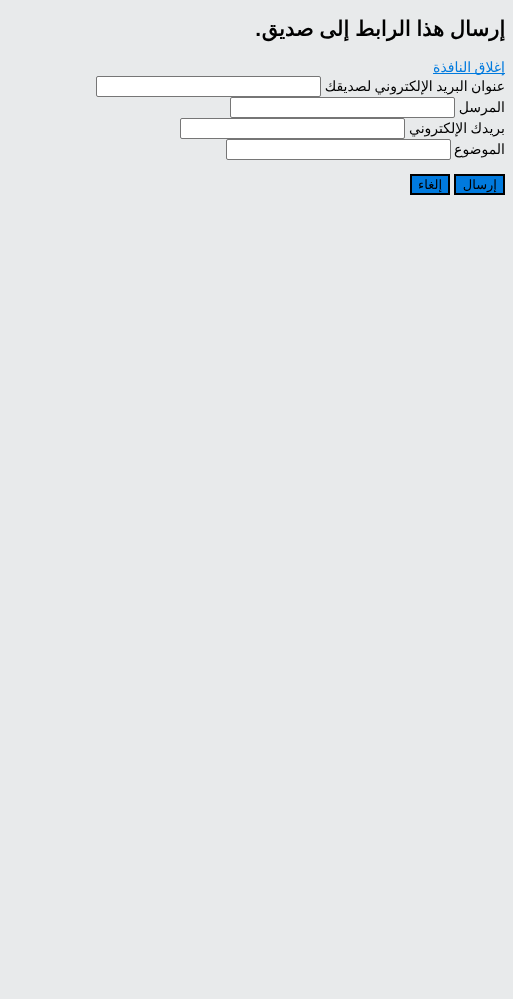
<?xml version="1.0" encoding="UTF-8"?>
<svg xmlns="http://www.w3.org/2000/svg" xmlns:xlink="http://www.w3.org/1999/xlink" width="513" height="999">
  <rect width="100%" height="100%" fill="#e8eaeb" />
  <rect x="433" y="73" width="72" height="1" fill="#007ade" />
  <rect x="96.5" y="76.5" width="224" height="20" rx="1.5" fill="#ffffff" stroke="#767676" />
  <rect x="230.5" y="97.5" width="224" height="20" rx="1.5" fill="#ffffff" stroke="#767676" />
  <rect x="180.5" y="118.5" width="224" height="20" rx="1.5" fill="#ffffff" stroke="#767676" />
  <rect x="226.5" y="139.5" width="224" height="20" rx="1.5" fill="#ffffff" stroke="#767676" />
  <rect x="455" y="175" width="49" height="19" fill="#007ade" stroke="#000000" stroke-width="2" />
  <rect x="411" y="175" width="38" height="19" fill="#007ade" stroke="#000000" stroke-width="2" />
  <text x="505" y="36" word-spacing="-1" style="font-family: DejaVu Sans; font-size: 21px; font-weight: bold; direction: rtl; fill: #000000">إرسال هذا الرابط</text>
  <text x="349" y="36" word-spacing="-1" style="font-family: DejaVu Sans; font-size: 21px; font-weight: bold; direction: rtl; fill: #000000">إلى صديق</text>
  <text x="261" y="36" style="font-family: Liberation Sans; font-size: 21px; font-weight: bold; direction: rtl; fill: #000000">.</text>
  <text x="505" y="72" word-spacing="-1" style="font-family: DejaVu Sans; font-size: 14px; direction: rtl; fill: #007ade">إغلاق النافذة</text>
  <text x="505" y="91" word-spacing="-1" style="font-family: DejaVu Sans; font-size: 14px; direction: rtl; fill: #000000">عنوان البريد الإلكتروني لصديقك</text>
  <text x="505" y="112" style="font-family: DejaVu Sans; font-size: 14px; direction: rtl; fill: #000000">المرسل</text>
  <text x="505" y="133" word-spacing="-1" style="font-family: DejaVu Sans; font-size: 14px; direction: rtl; fill: #000000">بريدك الإلكتروني</text>
  <text x="505" y="154" style="font-family: DejaVu Sans; font-size: 14px; direction: rtl; fill: #000000">الموضوع</text>
  <text x="497" y="189" style="font-family: DejaVu Sans; font-size: 13px; direction: rtl; fill: #000000">إرسال</text>
  <text x="442" y="189" style="font-family: DejaVu Sans; font-size: 13px; direction: rtl; fill: #000000">إلغاء</text>
</svg>
